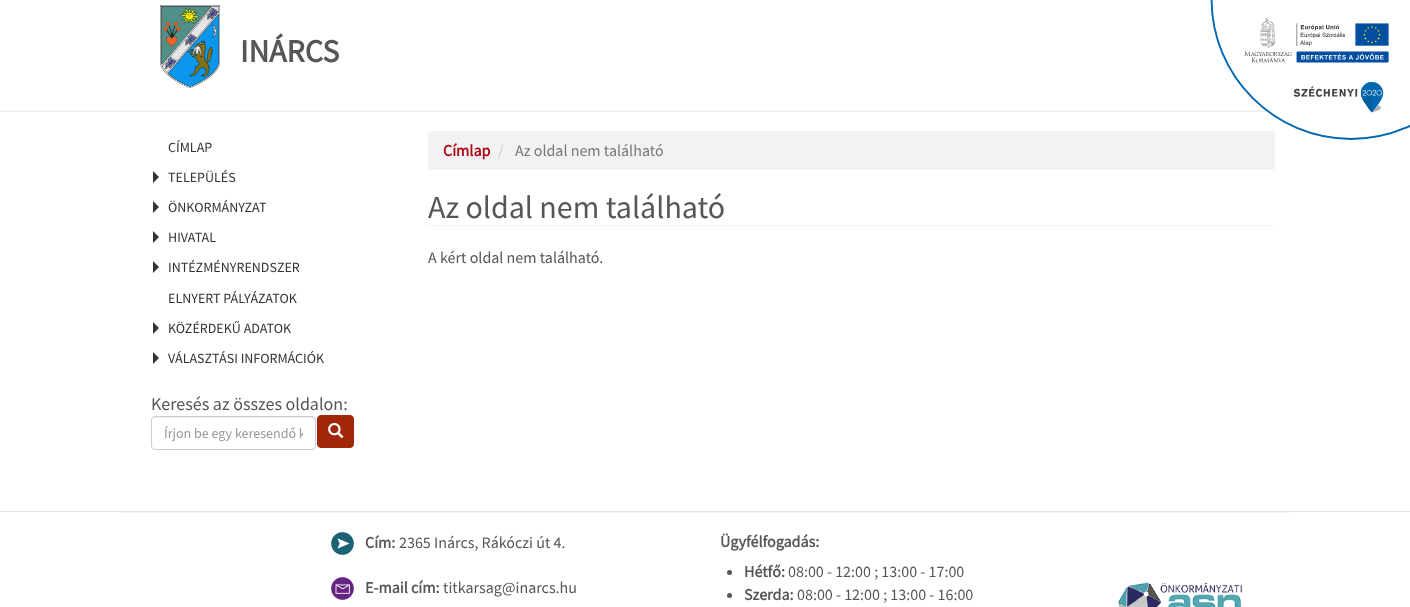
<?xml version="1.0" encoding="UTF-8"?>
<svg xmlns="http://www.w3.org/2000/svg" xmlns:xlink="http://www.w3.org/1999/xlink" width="1410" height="607">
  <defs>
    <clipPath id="clip1"><rect x="164" y="424" width="139" height="18" /></clipPath>
  </defs>
  <rect width="100%" height="100%" fill="#ffffff" />
  <rect y="110" width="1268" height="2" fill="#f2f2f2" />
  <image x="160" y="5" width="60" height="83" xlink:href="image1.png" />
  <path d="M 153 183 v -12 l 6 6 z m 0 30 v -12 l 6 6 z" fill="#333333" />
  <path d="M 153 243 v -12 l 6 6 z m 0 30 v -12 l 6 6 z" fill="#333333" />
  <path d="M 153 334 v -12 l 6 6 z m 0 30 v -12 l 6 6 z" fill="#333333" />
  <path d="M 155 418 h 157 c 2 0 3 1 3 3 c 0 -2 -1 -4 -3 -4 h -157 c -2 0 -3 2 -3 4 c 0 -2 1 -3 3 -3 z" fill="#ececec" />
  <rect x="151.5" y="416.5" width="164" height="33" rx="3.5" fill="none" stroke="#cccccc" />
  <rect x="317.5" y="415.5" width="36" height="32" rx="3.5" fill="#a1270b" stroke="#a1270b" />
  <image x="328" y="422" width="16" height="16" xlink:href="image2.png" />
  <rect x="428" y="131" width="847" height="39" rx="4" fill="#f2f2f2" />
  <rect x="428" y="225" width="847" height="1" fill="#f2f2f2" />
  <rect y="511" width="1410" height="1" fill="#e5e5e5" />
  <rect x="120" y="512" width="1170" height="1" fill="#f2f2f2" />
  <image x="331" y="532" width="23" height="23" xlink:href="image3.png" />
  <image x="331" y="577" width="23" height="23" xlink:href="image4.png" />
  <circle cx="729.5" cy="572.5" r="2.5" fill="#565656" />
  <circle cx="729.5" cy="595.5" r="2.5" fill="#565656" />
  <image x="1118" y="582" width="124" height="25" xlink:href="image5.png" />
  <image x="1210" y="0" width="200" height="140" xlink:href="image6.png" />
  <text x="240" y="62" style="font-family: Source Sans Pro; font-size: 32px; font-weight: bold; fill: #565656">INÁRCS</text>
  <text x="168" y="152" style="font-family: Source Sans Pro; font-size: 14px; fill: #333333">CÍMLAP</text>
  <text x="168" y="182" style="font-family: Source Sans Pro; font-size: 14px; fill: #333333">TELEPÜLÉS</text>
  <text x="168" y="212" style="font-family: Source Sans Pro; font-size: 14px; fill: #333333">ÖNKORMÁNYZAT</text>
  <text x="168" y="242" style="font-family: Source Sans Pro; font-size: 14px; fill: #333333">HIVATAL</text>
  <text x="168" y="272" style="font-family: Source Sans Pro; font-size: 14px; fill: #333333">INTÉZMÉNYRENDSZER</text>
  <text x="168" y="303" style="font-family: Source Sans Pro; font-size: 14px; fill: #333333">ELNYERT PÁLYÁZATOK</text>
  <text x="168" y="333" style="font-family: Source Sans Pro; font-size: 14px; fill: #333333">KÖZÉRDEKŰ ADATOK</text>
  <text x="168" y="363" style="font-family: Source Sans Pro; font-size: 14px; fill: #333333">VÁLASZTÁSI INFORMÁCIÓK</text>
  <text x="151" y="410" style="font-family: Source Sans Pro; font-size: 18px; fill: #565656">Keresés az összes oldalon:</text>
  <g clip-path="url(#clip1)">
    <text x="164" y="438" style="font-family: Source Sans Pro; font-size: 14px; fill: #999999">Írjon be egy keresendő k</text>
  </g>
  <text x="443" y="156" style="font-family: Source Sans Pro; font-size: 16px; font-weight: bold; fill: #ad0010">Címlap</text>
  <text x="498" y="156" style="font-family: Source Sans Pro; font-size: 16px; fill: #cccccc">/</text>
  <text x="515" y="156" style="font-family: Source Sans Pro; font-size: 16px; fill: #777777">Az oldal nem található</text>
  <text x="428" y="218" style="font-family: Source Sans Pro; font-size: 32px; fill: #565656">Az oldal nem található</text>
  <text x="428" y="263" style="font-family: Source Sans Pro; font-size: 16px; fill: #565656">A kért oldal nem található.</text>
  <text x="365" y="548" style="font-family: Source Sans Pro; font-size: 16px; font-weight: bold; fill: #565656">Cím:</text>
  <text x="399" y="548" style="font-family: Source Sans Pro; font-size: 16px; fill: #565656">2365 Inárcs, Rákóczi út 4.</text>
  <text x="365" y="593" style="font-family: Source Sans Pro; font-size: 16px; font-weight: bold; fill: #565656">E-mail cím:</text>
  <text x="443" y="593" style="font-family: Source Sans Pro; font-size: 16px; fill: #565656">titkarsag@inarcs.hu</text>
  <text x="720" y="547" style="font-family: Source Sans Pro; font-size: 16px; font-weight: bold; fill: #565656">Ügyfélfogadás:</text>
  <text x="744" y="577" style="font-family: Source Sans Pro; font-size: 16px; font-weight: bold; fill: #565656">Hétfő:</text>
  <text x="788" y="577" style="font-family: Source Sans Pro; font-size: 16px; fill: #565656">08:00 - 12:00 ; 13:00 - 17:00</text>
  <text x="744" y="600" style="font-family: Source Sans Pro; font-size: 16px; font-weight: bold; fill: #565656">Szerda:</text>
  <text x="797" y="600" style="font-family: Source Sans Pro; font-size: 16px; fill: #565656">08:00 - 12:00 ; 13:00 - 16:00</text>
</svg>
